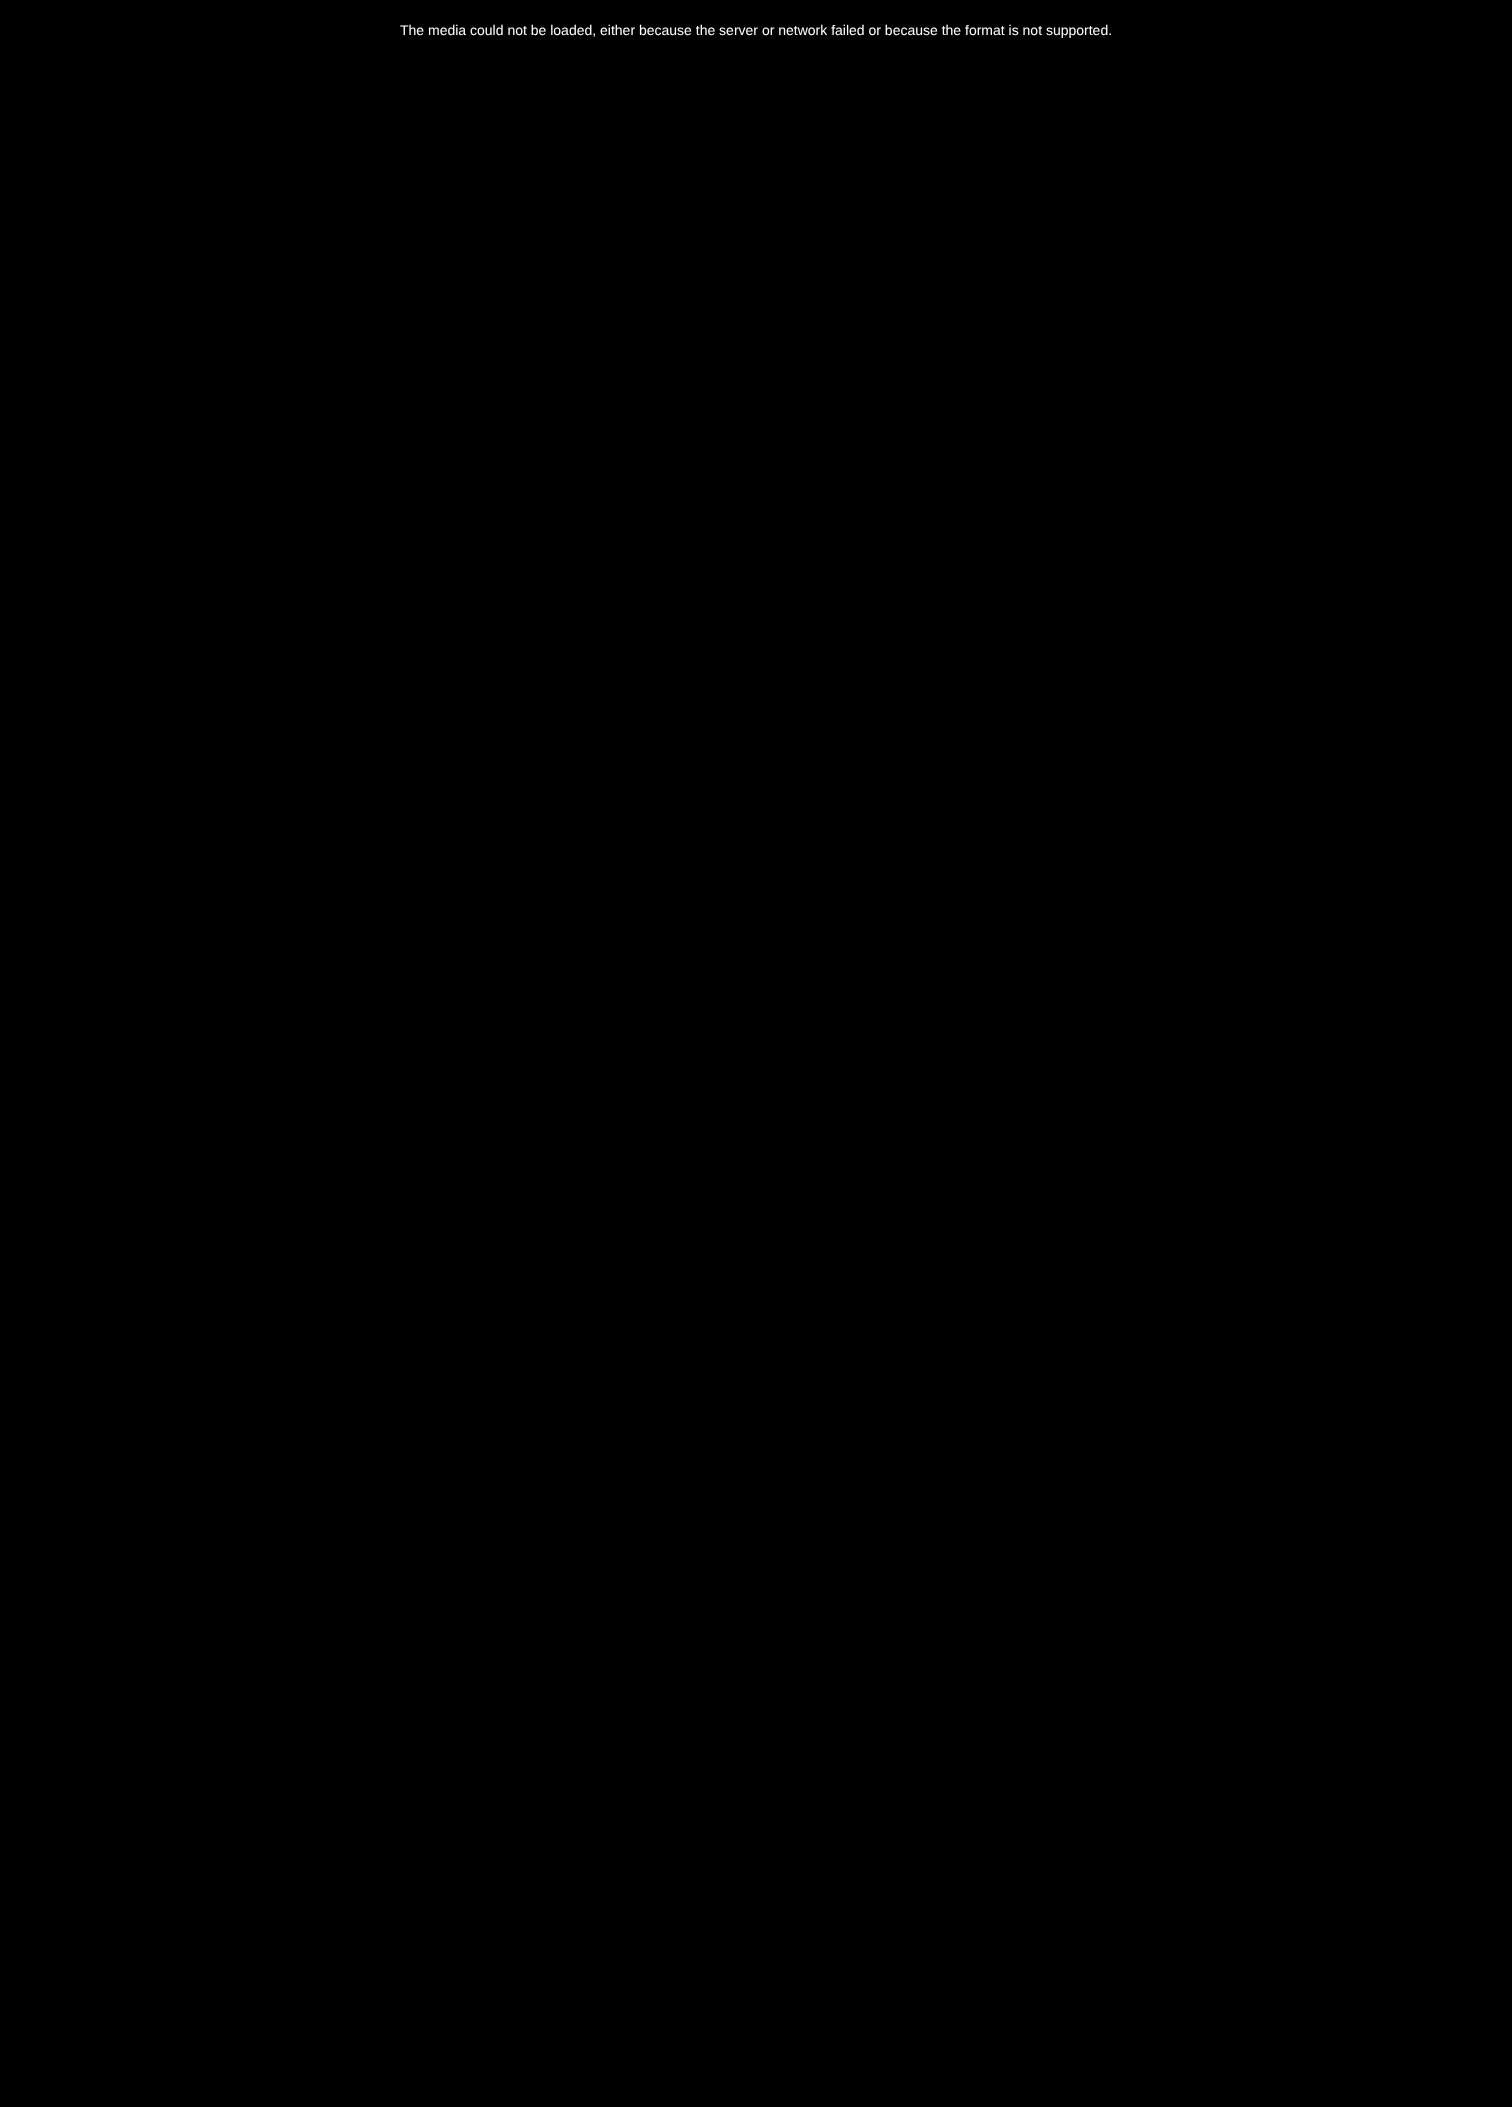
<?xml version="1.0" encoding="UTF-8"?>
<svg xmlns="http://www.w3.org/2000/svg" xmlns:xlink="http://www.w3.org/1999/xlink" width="1512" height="2107">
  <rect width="100%" height="100%" fill="#000000" />
  <text x="400" y="35" style="font-family: Liberation Sans; font-size: 14px; fill: #ffffff">The media could not be loaded, either because the server or network failed or because the format is not supported.</text>
</svg>
